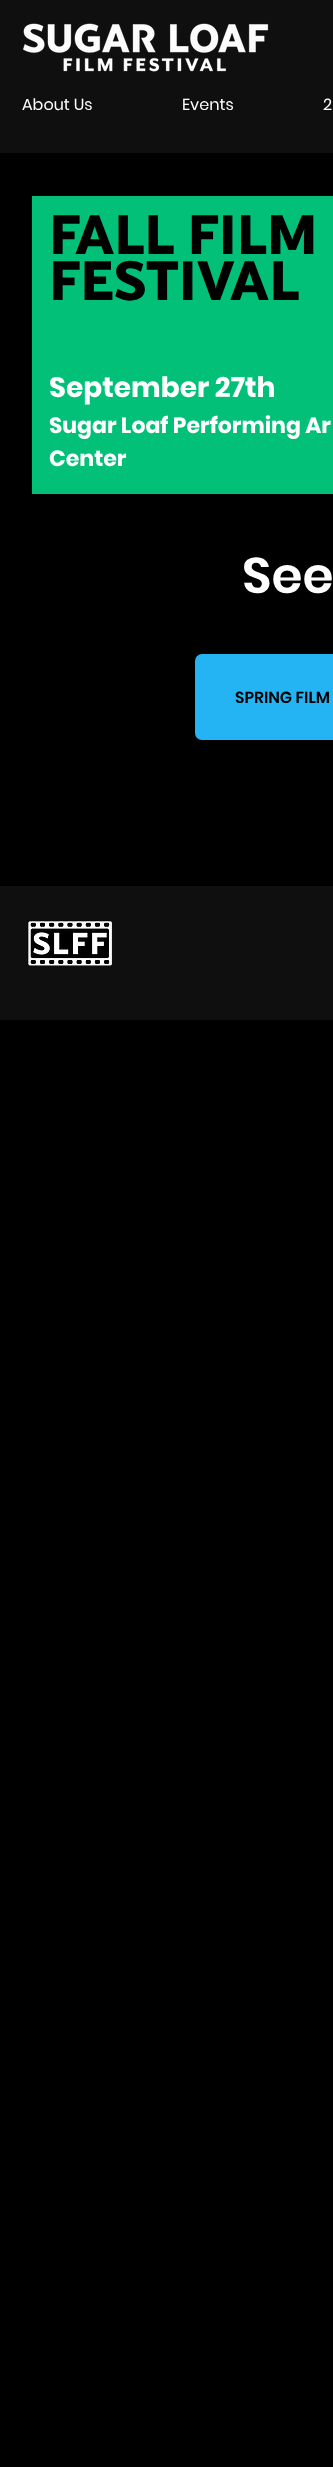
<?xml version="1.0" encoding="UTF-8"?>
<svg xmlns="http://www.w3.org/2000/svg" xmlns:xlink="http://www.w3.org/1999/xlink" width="333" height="2467">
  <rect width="100%" height="100%" fill="#000000" />
  <rect width="333" height="153" fill="#0f0f0f" />
  <image x="23" y="23" width="246" height="49" xlink:href="image1.png" />
  <rect x="32" y="196" width="301" height="298" fill="#03c079" />
  <rect x="195" y="654" width="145" height="86" rx="7" fill="#24b3f3" />
  <rect y="886" width="333" height="134" fill="#0f0f0f" />
  <image x="27" y="920" width="86" height="46" xlink:href="image2.png" />
  <text x="22" y="110" style="font-family: Poppins; font-size: 16px; fill: #ffffff">About Us</text>
  <text x="182" y="110" style="font-family: Poppins; font-size: 16px; fill: #ffffff">Events</text>
  <text x="323" y="110" style="font-family: Poppins; font-size: 16px; fill: #ffffff">2</text>
  <text x="49" y="254" style="font-family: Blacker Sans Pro; font-size: 55px; font-weight: 800; fill: #000000">FALL FILM</text>
  <text x="49" y="300" style="font-family: Blacker Sans Pro; font-size: 55px; font-weight: 800; fill: #000000">FESTIVAL</text>
  <text x="49" y="397" style="font-family: Poppins; font-size: 28px; font-weight: bold; fill: #ffffff">September 27th</text>
  <text x="49" y="433" style="font-family: Poppins; font-size: 22px; font-weight: bold; fill: #ffffff">Sugar Loaf Performing Ar</text>
  <text x="49" y="466" style="font-family: Poppins; font-size: 22px; font-weight: bold; fill: #ffffff">Center</text>
  <text x="242" y="593" style="font-family: Poppins; font-size: 50px; font-weight: 600; fill: #ffffff">See</text>
  <text x="235" y="703" style="font-family: Poppins; font-size: 16px; font-weight: 600; fill: #000000">SPRING FILM</text>
</svg>
